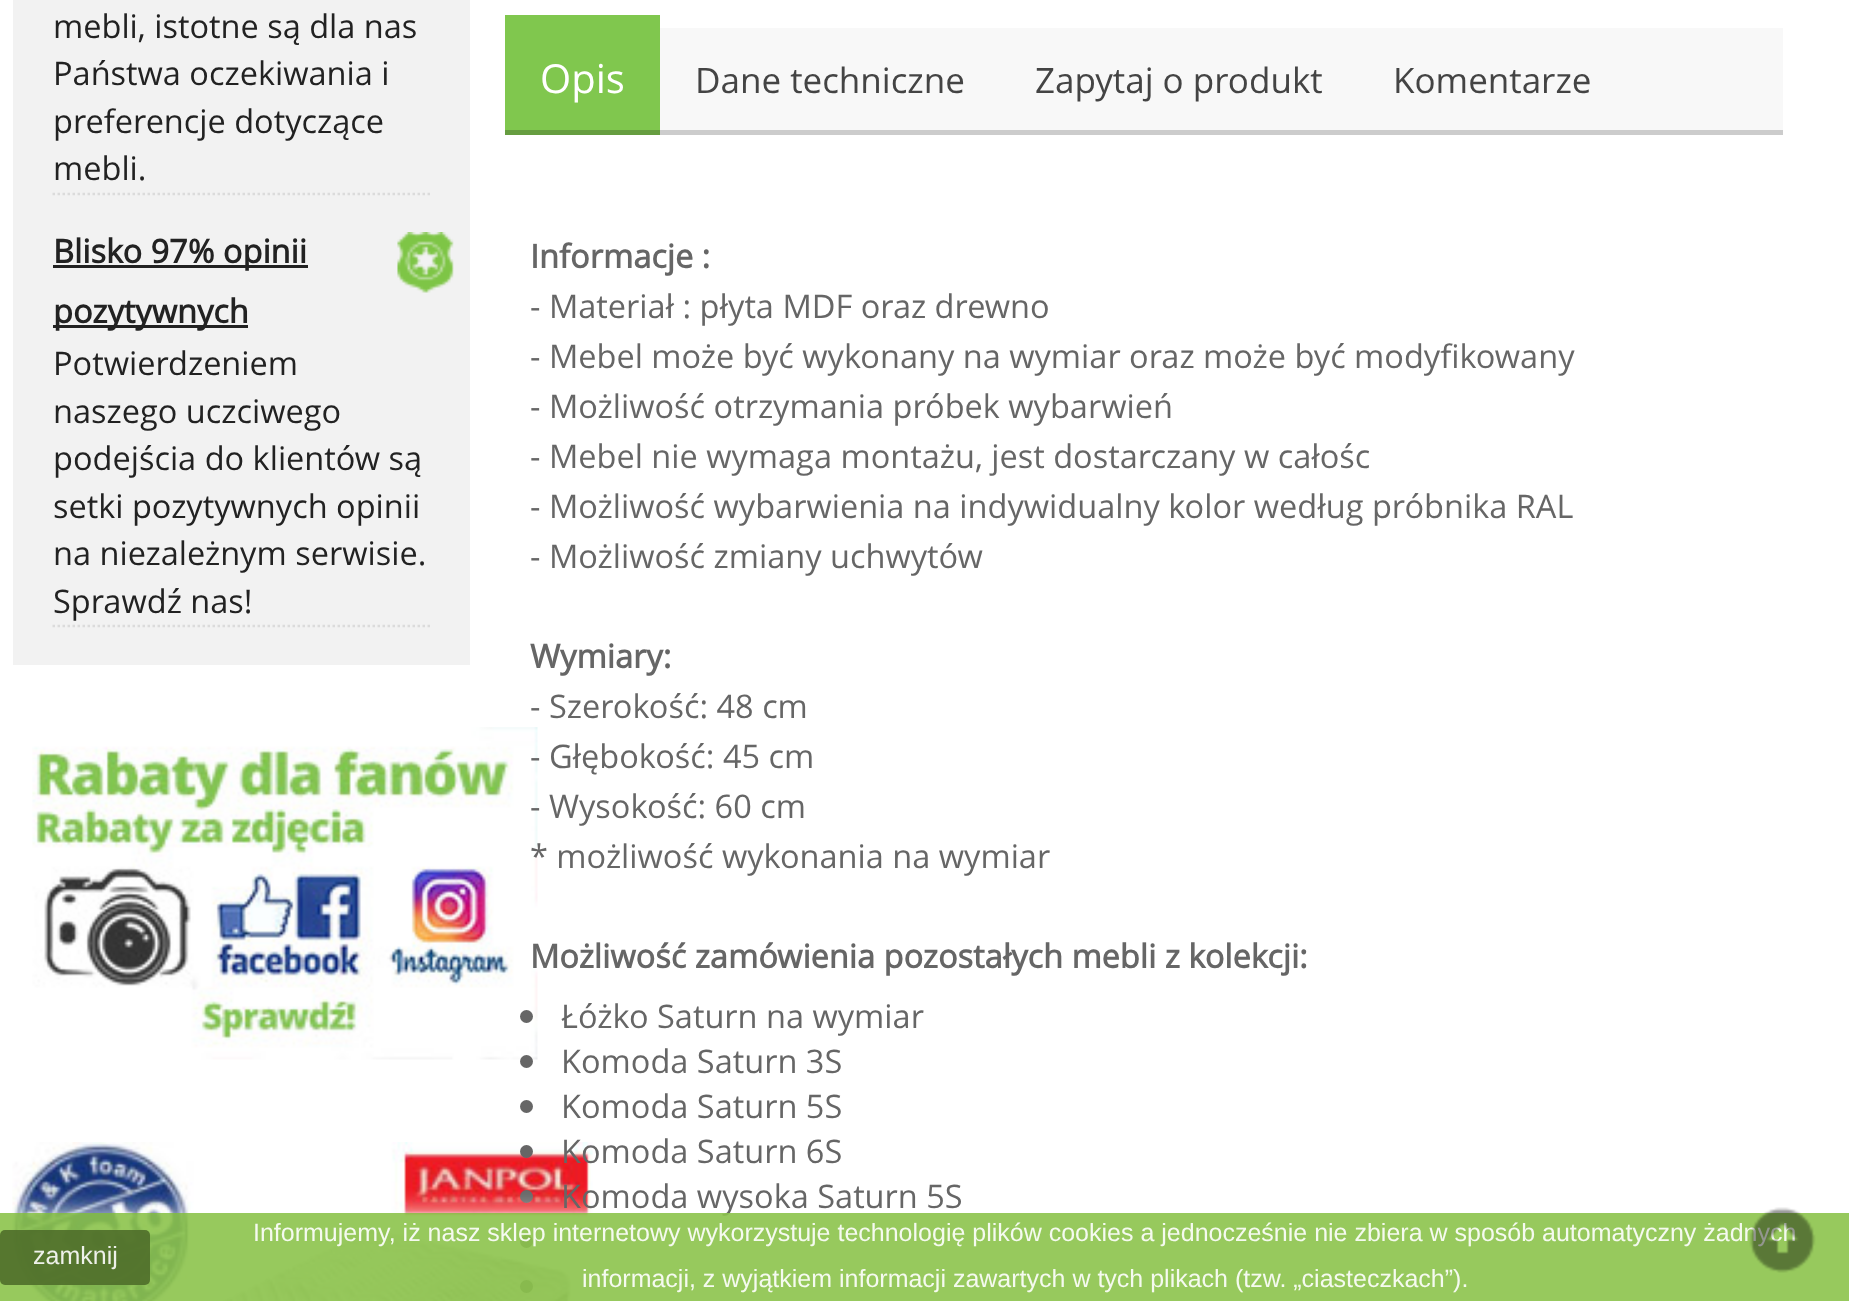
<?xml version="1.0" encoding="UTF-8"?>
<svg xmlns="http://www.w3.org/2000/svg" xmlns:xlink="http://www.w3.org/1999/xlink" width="1849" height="1301">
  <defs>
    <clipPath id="clip1"><rect x="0" y="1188" width="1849" height="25" /></clipPath>
  </defs>
  <rect width="100%" height="100%" fill="#ffffff" />
  <rect x="13" width="457" height="665" fill="#f2f2f2" />
  <path d="M 52.5 194 h 377.5" fill="none" stroke="#dbdbdb" stroke-width="2.5" stroke-dasharray="2.5 2.5" />
  <image x="397" y="232" width="57" height="61" xlink:href="image1.png" />
  <rect x="53" y="265" width="255" height="3" fill="#222222" />
  <rect x="53" y="325" width="195" height="3" fill="#222222" />
  <path d="M 52.5 626 h 377.5" fill="none" stroke="#dbdbdb" stroke-width="2.5" stroke-dasharray="2.5 2.5" />
  <image x="32" y="727" width="506" height="333" xlink:href="image2.png" />
  <image x="12" y="1142" width="581" height="159" xlink:href="image3.png" />
  <rect x="660" y="28" width="1123" height="102" fill="#f8f8f8" />
  <rect x="660" y="130" width="1123" height="5" fill="#cccccc" />
  <rect x="505" y="15" width="155" height="115" fill="#80c74e" />
  <rect x="505" y="130" width="155" height="5" fill="#669d40" />
  <circle cx="526.5" cy="1016.5" r="6.5" fill="#666666" />
  <circle cx="526.5" cy="1061.5" r="6.5" fill="#666666" />
  <circle cx="526.5" cy="1106.5" r="6.5" fill="#666666" />
  <circle cx="526.5" cy="1151.5" r="6.5" fill="#666666" />
  <circle cx="526.5" cy="1196.5" r="6.5" fill="#666666" />
  <circle cx="526.5" cy="1241.5" r="6.5" fill="#666666" />
  <circle cx="526.5" cy="1286.5" r="6.5" fill="#666666" />
  <g clip-path="url(#clip1)">
    <rect y="1213" width="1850" height="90" fill="#ffffff" fill-opacity="0.9" filter="blur(12.5px)" />
  </g>
  <text x="53" y="38" style="font-family: Open Sans; font-size: 32.5px; fill: #222222">mebli, istotne są dla nas</text>
  <text x="53" y="85" style="font-family: Open Sans; font-size: 32.5px; fill: #222222">Państwa oczekiwania i</text>
  <text x="53" y="133" style="font-family: Open Sans; font-size: 32.5px; fill: #222222">preferencje dotyczące</text>
  <text x="53" y="180" style="font-family: Open Sans; font-size: 32.5px; fill: #222222">mebli.</text>
  <text x="53" y="263" style="font-family: Open Sans; font-size: 32.5px; font-weight: bold; fill: #222222">Blisko 97% opinii</text>
  <text x="53" y="323" style="font-family: Open Sans; font-size: 32.5px; font-weight: bold; fill: #222222">pozytywnych</text>
  <text x="53" y="375" style="font-family: Open Sans; font-size: 32.5px; fill: #222222">Potwierdzeniem</text>
  <text x="53" y="423" style="font-family: Open Sans; font-size: 32.5px; fill: #222222">naszego uczciwego</text>
  <text x="53" y="470" style="font-family: Open Sans; font-size: 32.5px; fill: #222222">podejścia do klientów są</text>
  <text x="53" y="518" style="font-family: Open Sans; font-size: 32.5px; fill: #222222">setki pozytywnych opinii</text>
  <text x="53" y="565" style="font-family: Open Sans; font-size: 32.5px; fill: #222222">na niezależnym serwisie.</text>
  <text x="53" y="613" style="font-family: Open Sans; font-size: 32.5px; fill: #222222">Sprawdź nas!</text>
  <text x="540" y="93" style="font-family: Open Sans; font-size: 40px; fill: #ffffff">Opis</text>
  <text x="695" y="93" style="font-family: Open Sans; font-size: 35px; fill: #444444">Dane techniczne</text>
  <text x="1035" y="93" style="font-family: Open Sans; font-size: 35px; fill: #444444">Zapytaj o produkt</text>
  <text x="1393" y="93" style="font-family: Open Sans; font-size: 35px; fill: #444444">Komentarze</text>
  <text x="530" y="268" style="font-family: Open Sans; font-size: 32.5px; font-weight: bold; fill: #666666">Informacje :</text>
  <text x="530" y="318" style="font-family: Open Sans; font-size: 32.5px; fill: #666666">- Materiał : płyta MDF oraz drewno</text>
  <text x="530" y="368" style="font-family: Open Sans; font-size: 32.5px; fill: #666666">- Mebel może być wykonany na wymiar oraz może być modyfikowany</text>
  <text x="530" y="418" style="font-family: Open Sans; font-size: 32.5px; fill: #666666">- Możliwość otrzymania próbek wybarwień</text>
  <text x="530" y="468" style="font-family: Open Sans; font-size: 32.5px; fill: #666666">- Mebel nie wymaga montażu, jest dostarczany w całośc</text>
  <text x="530" y="518" style="font-family: Open Sans; font-size: 32.5px; fill: #666666">- Możliwość wybarwienia na indywidualny kolor według próbnika RAL</text>
  <text x="530" y="568" style="font-family: Open Sans; font-size: 32.5px; fill: #666666">- Możliwość zmiany uchwytów</text>
  <text x="530" y="668" style="font-family: Open Sans; font-size: 32.5px; font-weight: bold; fill: #666666">Wymiary:</text>
  <text x="530" y="718" style="font-family: Open Sans; font-size: 32.5px; fill: #666666">- Szerokość: 48 cm</text>
  <text x="530" y="768" style="font-family: Open Sans; font-size: 32.5px; fill: #666666">- Głębokość: 45 cm</text>
  <text x="530" y="818" style="font-family: Open Sans; font-size: 32.5px; fill: #666666">- Wysokość: 60 cm</text>
  <text x="530" y="868" style="font-family: Open Sans; font-size: 32.5px; fill: #666666">* możliwość wykonania na wymiar</text>
  <text x="530" y="968" style="font-family: Open Sans; font-size: 32.5px; font-weight: bold; fill: #666666">Możliwość zamówienia pozostałych mebli z kolekcji:</text>
  <text x="561" y="1028" style="font-family: Open Sans; font-size: 32.5px; fill: #666666">Łóżko Saturn na wymiar</text>
  <text x="561" y="1073" style="font-family: Open Sans; font-size: 32.5px; fill: #666666">Komoda Saturn 3S</text>
  <text x="561" y="1118" style="font-family: Open Sans; font-size: 32.5px; fill: #666666">Komoda Saturn 5S</text>
  <text x="561" y="1163" style="font-family: Open Sans; font-size: 32.5px; fill: #666666">Komoda Saturn 6S</text>
  <text x="561" y="1208" style="font-family: Open Sans; font-size: 32.5px; fill: #666666">Komoda wysoka Saturn 5S</text>
  <rect y="1213" width="1849" height="88" fill="#8cc34b" fill-opacity="0.9" />
  <rect y="1230" width="150" height="55" rx="5" fill="#4f6e2a" fill-opacity="0.9" />
  <text x="33" y="1264" style="font-family: Liberation Sans; font-size: 25px; fill: #eef1ea">zamknij</text>
  <text x="253" y="1241" style="font-family: Liberation Sans; font-size: 25px; fill: #f5faef">Informujemy, iż nasz sklep internetowy wykorzystuje technologię plików cookies a jednocześnie nie zbiera w sposób automatyczny żadnych</text>
  <image x="1749" y="1207" width="67" height="66" xlink:href="image4.png" />
  <text x="582" y="1287" style="font-family: Liberation Sans; font-size: 25px; fill: #f5faef">informacji, z wyjątkiem informacji zawartych w tych plikach (tzw. „ciasteczkach”).</text>
</svg>
